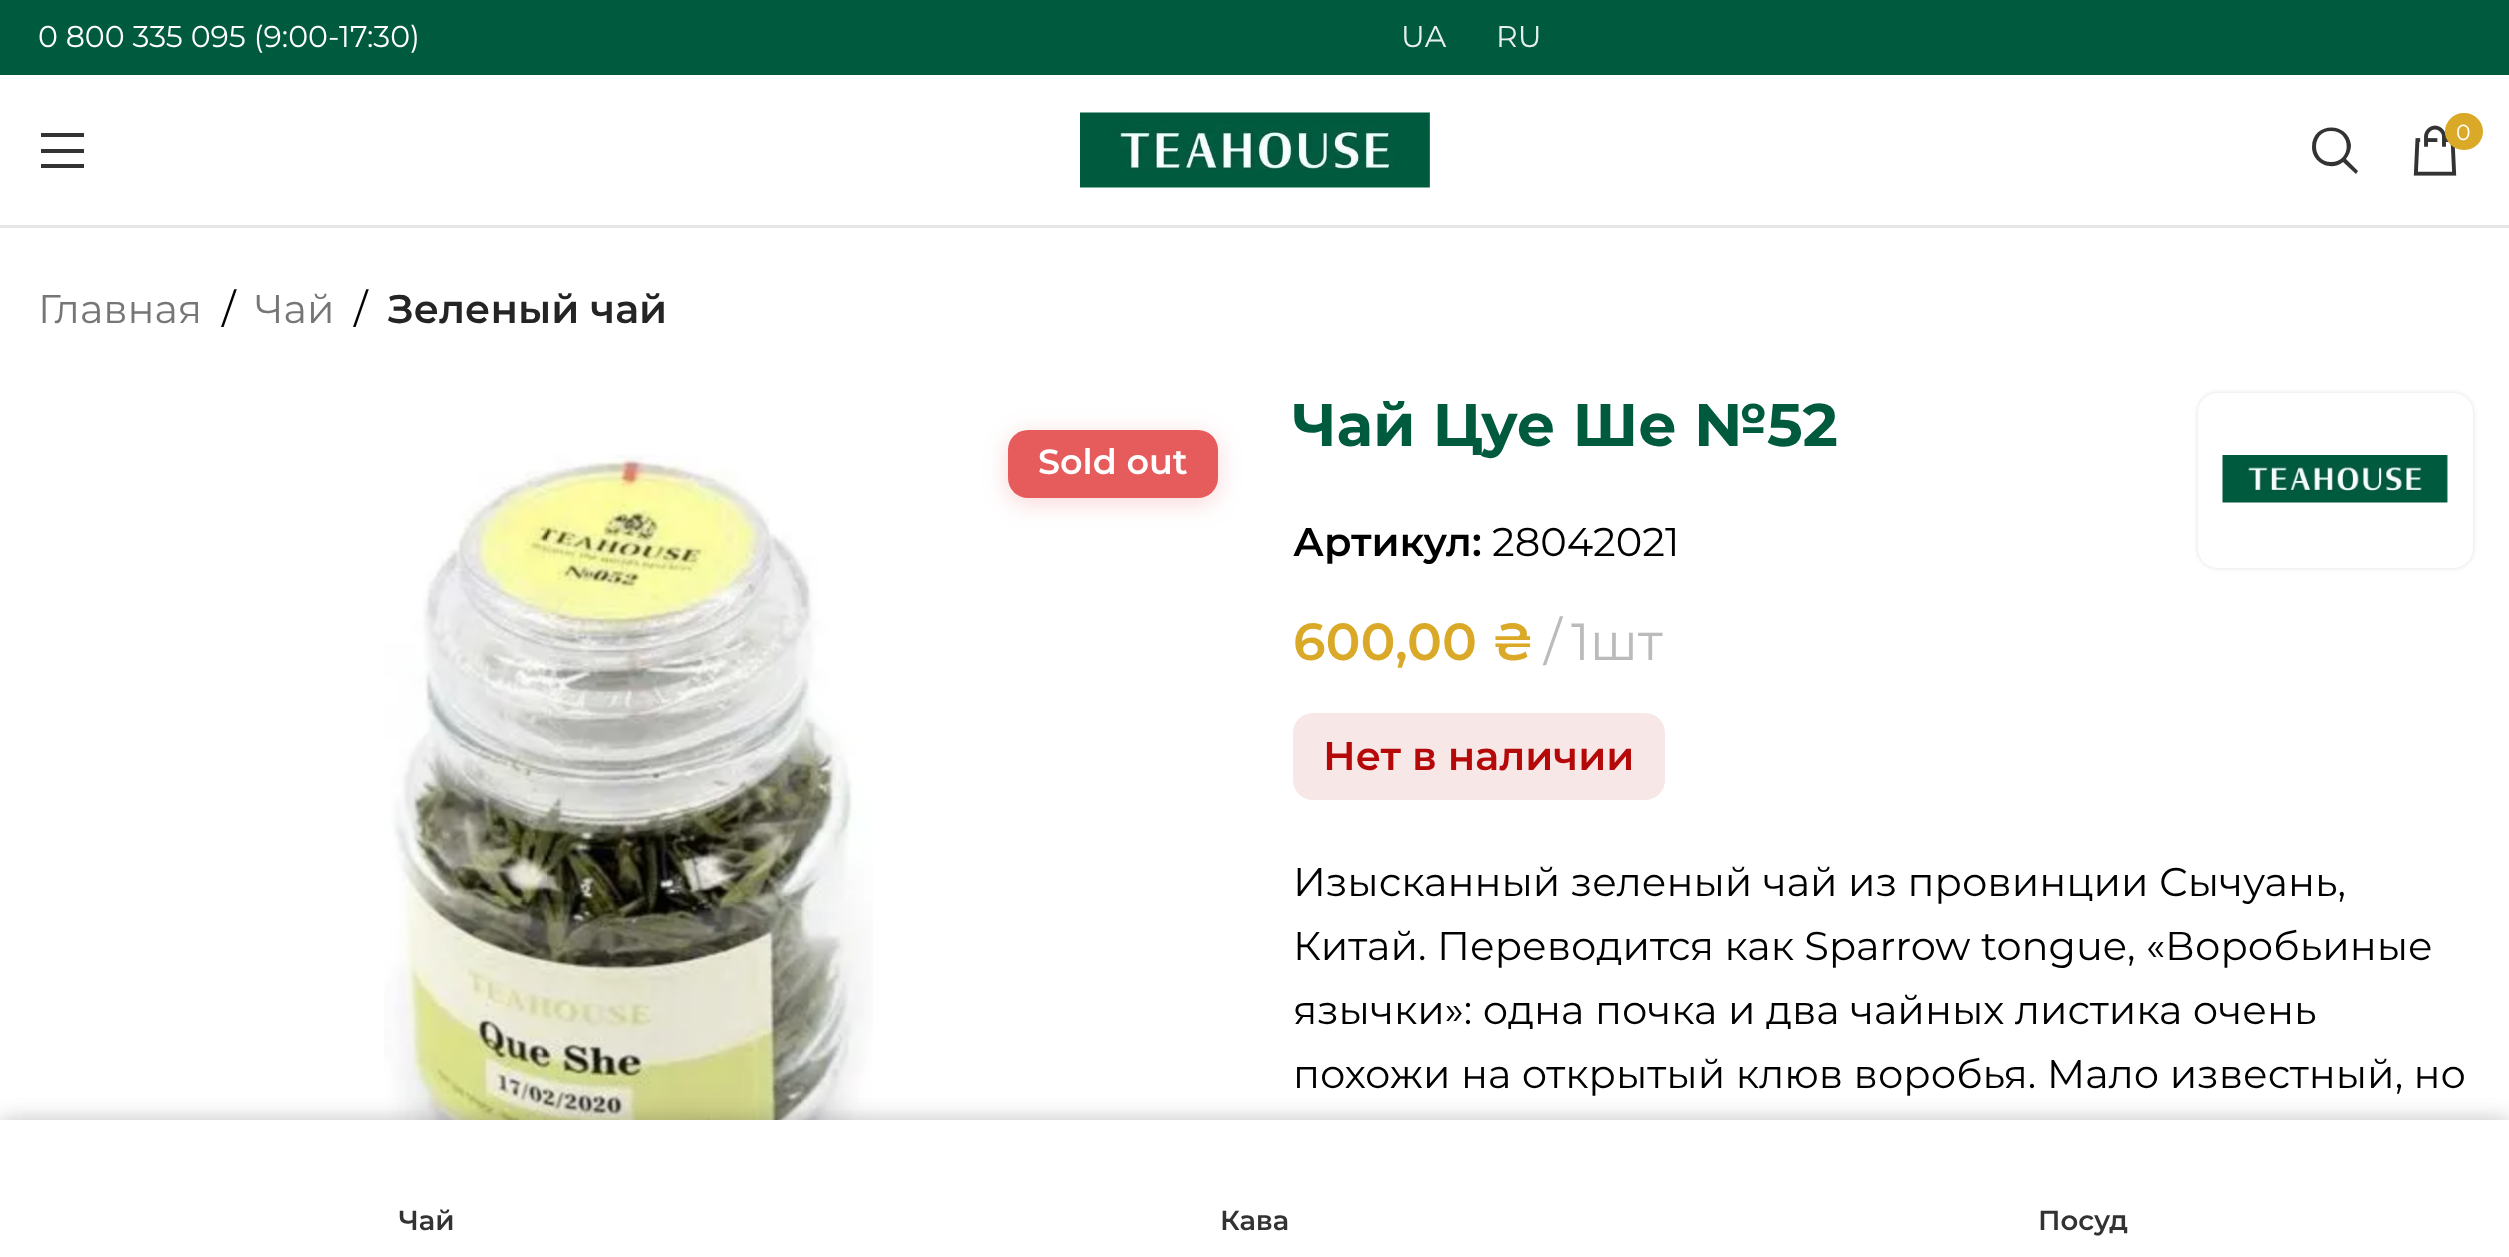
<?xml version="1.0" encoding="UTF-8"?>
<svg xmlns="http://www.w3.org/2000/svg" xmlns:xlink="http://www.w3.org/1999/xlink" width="2509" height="1257">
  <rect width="100%" height="100%" fill="#ffffff" />
  <rect width="2509" height="75" fill="#005a3e" />
  <rect y="225" width="2509" height="3" fill="#e6e6e6" />
  <path d="M 41 137 h 43 v -4 h -43 z m 0 16 h 43 v -4 h -43 z m 0 15 h 43 v -4 h -43 z" fill="#333333" />
  <image x="1080" y="112" width="350" height="76" xlink:href="image1.png" />
  <path d="M 2312 147 c 0 16 19 25 31 15 l 13 12 l 2 -3 l -12 -12 c 3 -4 5 -9 5 -14 c -3 -24 -39 -23 -39 2 z m 19 15 c -20 0 -20 -31 0 -31 c 21 0 21 31 0 31 z" fill="#333333" />
  <image x="2413" y="125" width="44" height="51" xlink:href="image2.png" />
  <rect x="2445" y="113" width="38" height="37" rx="18.5" fill="#d9a927" />
  <image x="384" y="454" width="489" height="666" xlink:href="image3.png" />
  <rect x="1008" y="435" width="210" height="68" rx="20" fill="#e65b5b" fill-opacity="0.25" filter="blur(12.5px)" />
  <rect x="1008" y="430" width="210" height="68" rx="20" fill="#e65b5b" />
  <rect x="2198" y="393" width="275" height="175" rx="20" fill="#000000" fill-opacity="0.12" filter="blur(2.5px)" />
  <rect x="2198" y="393" width="275" height="175" rx="20" fill="#ffffff" />
  <image x="2222" y="455" width="226" height="48" xlink:href="image4.png" />
  <rect x="1293" y="713" width="372" height="87" rx="20" fill="#f8e7e7" />
  <rect y="1120" width="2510" height="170" fill="#000000" fill-opacity="0.12" filter="blur(11px)" />
  <rect y="1120" width="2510" height="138" fill="#000000" fill-opacity="0.12" filter="blur(11px)" />
  <rect y="1120" width="2509" height="137" fill="#ffffff" />
  <text x="38" y="47" style="font-family: Montserrat; font-size: 30px; fill: #ffffff">0 800 335 095 (9:00-17:30)</text>
  <text x="1401" y="47" style="font-family: Montserrat; font-size: 30px; fill: #e6efec">UA</text>
  <text x="1496" y="47" style="font-family: Montserrat; font-size: 30px; fill: #e6efec">RU</text>
  <text x="2456" y="140" style="font-family: Montserrat; font-size: 22px; fill: #ffffff">0</text>
  <text x="38" y="323" style="font-family: Montserrat; font-size: 40px; fill: #767676">Главная</text>
  <text x="222" y="323" style="font-family: Montserrat; font-size: 40px; fill: #000000">/</text>
  <text x="255" y="323" style="font-family: Montserrat; font-size: 40px; fill: #767676">Чай</text>
  <text x="354" y="323" style="font-family: Montserrat; font-size: 40px; fill: #000000">/</text>
  <text x="388" y="323" style="font-family: Montserrat; font-size: 40px; font-weight: 600; fill: #242424">Зеленый чай</text>
  <text x="1038" y="474" style="font-family: Montserrat; font-size: 35px; font-weight: 600; fill: #ffffff">Sold out</text>
  <text x="1293" y="446" style="font-family: Montserrat; font-size: 60px; font-weight: bold; fill: #005a3e">Чай Цуе Ше №52</text>
  <text x="1293" y="556" style="font-family: Montserrat; font-size: 40px; font-weight: 600; fill: #000000">Артикул:</text>
  <text x="1492" y="556" style="font-family: Montserrat; font-size: 40px; fill: #000000">28042021</text>
  <text x="1293" y="660" style="font-family: Montserrat; font-size: 52px; font-weight: 600; fill: #d9a927">600,00 ₴</text>
  <text x="1544" y="660" style="font-family: Montserrat; font-size: 52px; fill: #bbbbbb">/</text>
  <text x="1571" y="660" style="font-family: Montserrat; font-size: 52px; fill: #bbbbbb">1шт</text>
  <text x="1323" y="770" style="font-family: Montserrat; font-size: 40px; font-weight: 600; fill: #b50808">Нет в наличии</text>
  <text x="1293" y="896" style="font-family: Montserrat; font-size: 40px; fill: #000000">Изысканный зеленый чай из провинции Сычуань,</text>
  <text x="1293" y="960" style="font-family: Montserrat; font-size: 40px; fill: #000000">Китай. Переводится как Sparrow tongue, «Воробьиные</text>
  <text x="1293" y="1024" style="font-family: Montserrat; font-size: 40px; fill: #000000">язычки»: одна почка и два чайных листика очень</text>
  <text x="1293" y="1088" style="font-family: Montserrat; font-size: 40px; fill: #000000">похожи на открытый клюв воробья. Мало известный, но</text>
  <text x="399" y="1230" style="font-family: Montserrat; font-size: 27.5px; font-weight: 600; fill: #333333">Чай</text>
  <text x="1220" y="1230" style="font-family: Montserrat; font-size: 27.5px; font-weight: 600; fill: #333333">Кава</text>
  <text x="2038" y="1230" style="font-family: Montserrat; font-size: 27.5px; font-weight: 600; fill: #333333">Посуд</text>
</svg>
